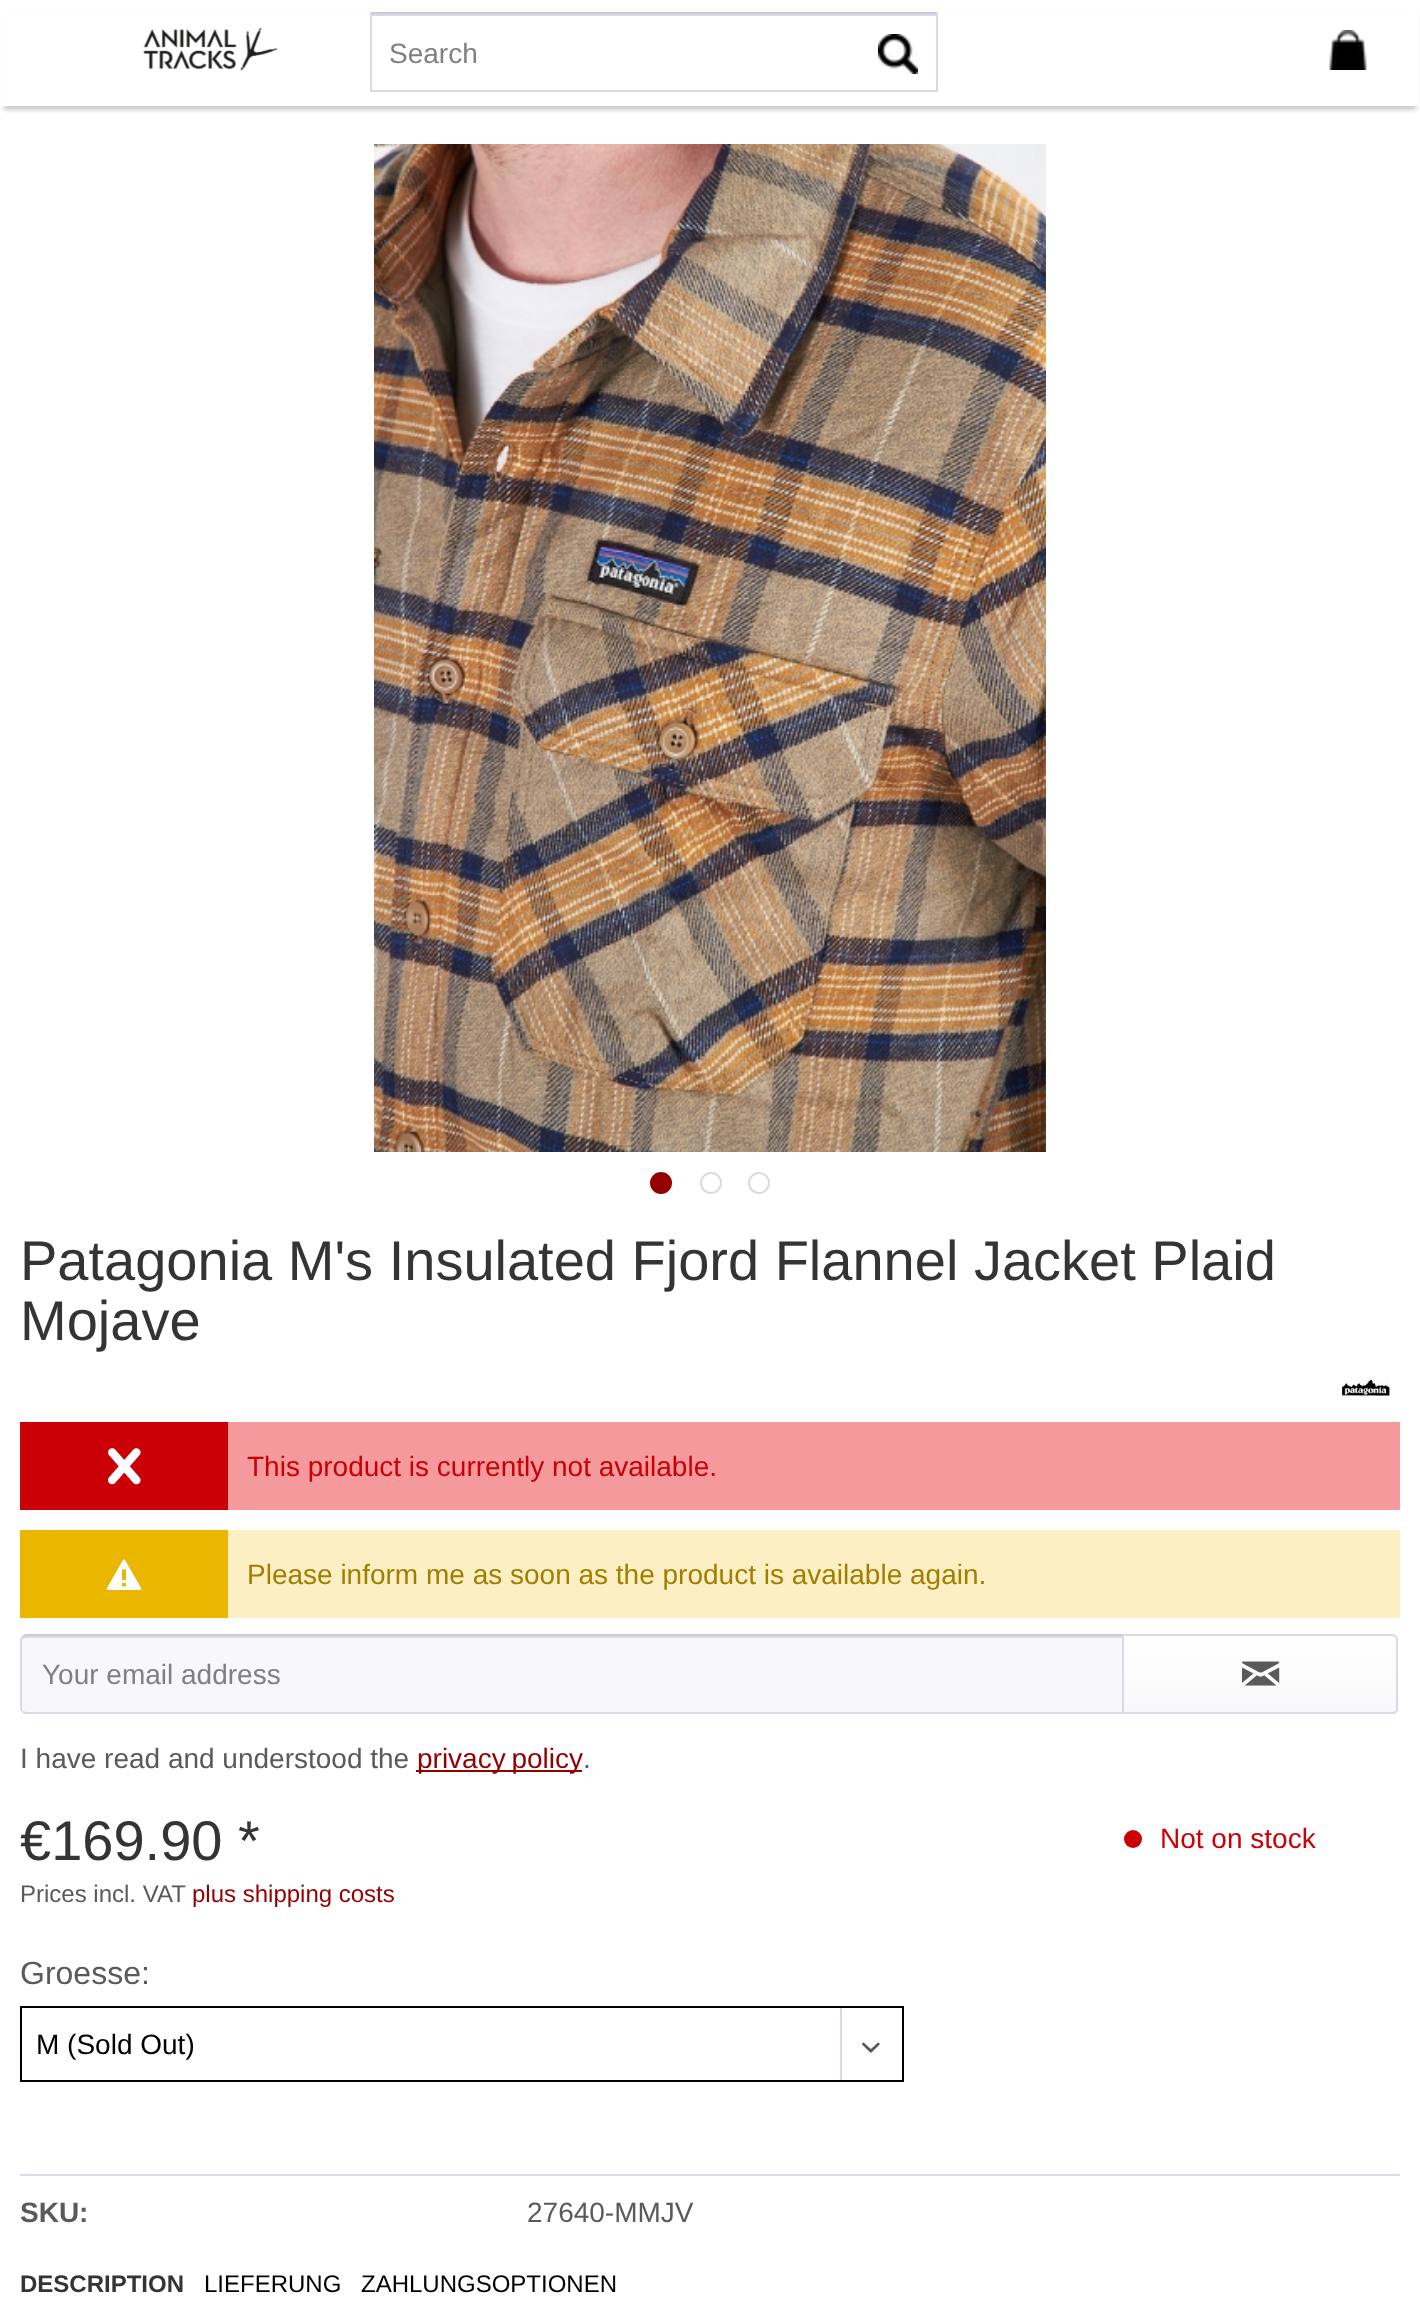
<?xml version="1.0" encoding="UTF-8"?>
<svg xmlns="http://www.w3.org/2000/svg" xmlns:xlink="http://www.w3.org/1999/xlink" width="1420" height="2310">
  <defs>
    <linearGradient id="g1" gradientUnits="userSpaceOnUse" x1="1260" y1="1636" x2="1260" y2="1712"><stop offset="0" stop-color="#ffffff" /><stop offset="1" stop-color="#f8f8fa" /></linearGradient>
  </defs>
  <rect width="100%" height="100%" fill="#ffffff" />
  <rect x="4" y="12" width="1412" height="98" fill="#cccccc" filter="blur(2px)" />
  <rect x="1" y="9" width="1418" height="97" fill="#ffffff" />
  <image x="143" y="27" width="135" height="44" xlink:href="image1.png" />
  <rect x="372" y="14" width="564" height="2" fill="#dadae5" />
  <rect x="370" y="12" width="568" height="2" fill="#cbcbdb" />
  <rect x="936" y="12" width="2" height="80" fill="#dadae5" />
  <rect x="370" y="90" width="568" height="2" fill="#dadae5" />
  <rect x="370" y="12" width="2" height="80" fill="#dadae5" />
  <image x="878" y="34" width="40" height="40" xlink:href="image2.png" />
  <image x="1329" y="30" width="38" height="40" xlink:href="image3.png" />
  <image x="374" y="144" width="672" height="1008" xlink:href="image4.png" />
  <circle cx="661" cy="1183" r="10" fill="#940000" stroke="#940000" stroke-width="2" />
  <circle cx="711" cy="1183" r="10" fill="none" stroke="#dadae5" stroke-width="2" />
  <circle cx="759" cy="1183" r="10" fill="none" stroke="#dadae5" stroke-width="2" />
  <image x="1342" y="1379" width="48" height="17" xlink:href="image5.png" />
  <rect x="228" y="1422" width="1172" height="88" fill="#f4999c" />
  <rect x="20" y="1422" width="208" height="88" fill="#cb0006" />
  <image x="108" y="1448" width="33" height="37" xlink:href="image6.png" />
  <rect x="228" y="1530" width="1172" height="88" fill="#fcefc3" />
  <rect x="20" y="1530" width="208" height="88" fill="#e9b600" />
  <image x="106" y="1559" width="36" height="31" xlink:href="image7.png" />
  <path d="M 26 1636 h 1096 v 76 h -1096 c -2 0 -4 -2 -4 -4 v -68 c 0 -2 2 -4 4 -4 z" fill="#f8f8fa" />
  <path d="M 26 1638 h 1096 v -2 h -1096 c -2 0 -4 2 -4 4 v 2 c 0 -2 2 -4 4 -4 z" fill="#dadae5" />
  <path d="M 26 1634 c -2 0 -3 1 -4 2 l 1 1 l 3 -1 h 1096 l 2 -2 z" fill="#cbcbdb" />
  <path d="M 1124 1714 l -2 -2 h -1096 l -3 -1 l -1 1 c 1 1 2 2 4 2 z" fill="#dadae5" />
  <path d="M 20 1640 v 68 c 0 2 1 3 2 4 l 1 -1 l -1 -3 v -68 l 1 -3 l -1 -1 c -1 1 -2 2 -2 4 z" fill="#dadae5" />
  <path d="M 1124 1636 h 268 c 2 0 4 2 4 4 v 68 c 0 2 -2 4 -4 4 h -268 z" fill="url(#g1)" />
  <path d="M 1123 1635 h 269 c 3 0 5 2 5 5 v 68 c 0 3 -2 5 -5 5 h -269 z" fill="none" stroke="#dadae5" stroke-width="2" />
  <image x="1242" y="1661" width="38" height="25" xlink:href="image8.png" />
  <rect x="416" y="1770" width="166" height="2" fill="#940000" />
  <circle cx="1133" cy="1839" r="9" fill="#cb0006" />
  <rect x="21" y="2007" width="882" height="74" fill="none" stroke="#000000" stroke-width="2" />
  <rect x="840" y="2008" width="2" height="72" fill="#dadae5" />
  <image x="862" y="2042" width="18" height="11" xlink:href="image9.png" />
  <rect x="20" y="2174" width="1380" height="2" fill="#dadae5" />
  <text x="389" y="63" style="font-family: Liberation Sans; font-size: 28px; fill: #808081">Search</text>
  <text x="20" y="1280" style="font-family: Liberation Sans; font-size: 56px; fill: #343435">Patagonia M's Insulated Fjord Flannel Jacket Plaid</text>
  <text x="20" y="1340" style="font-family: Liberation Sans; font-size: 56px; fill: #343435">Mojave</text>
  <text x="247" y="1476" style="font-family: Liberation Sans; font-size: 28px; fill: #cb0006">This product is currently not available.</text>
  <text x="247" y="1584" style="font-family: Liberation Sans; font-size: 28px; fill: #a27e00">Please inform me as soon as the product is available again.</text>
  <text x="42" y="1684" style="font-family: Liberation Sans; font-size: 28px; fill: #808081">Your email address</text>
  <text x="20" y="1768" style="font-family: Liberation Sans; font-size: 28px; fill: #5a5a5b">I have read and understood the</text>
  <text x="417" y="1768" word-spacing="-2" style="font-family: Liberation Sans; font-size: 28px; fill: #940000">privacy policy</text>
  <text x="583" y="1768" style="font-family: Liberation Sans; font-size: 28px; fill: #5a5a5b">.</text>
  <text x="20" y="1860" style="font-family: Liberation Sans; font-size: 56px; fill: #343435">€169.90 *</text>
  <text x="1160" y="1848" style="font-family: Liberation Sans; font-size: 28px; fill: #cb0006">Not on stock</text>
  <text x="20" y="1902" style="font-family: Liberation Sans; font-size: 24px; fill: #5a5a5b">Prices incl. VAT</text>
  <text x="192" y="1902" style="font-family: Liberation Sans; font-size: 24px; fill: #940000">plus shipping costs</text>
  <text x="20" y="1984" style="font-family: Liberation Sans; font-size: 32px; fill: #5a5a5b">Groesse:</text>
  <text x="36" y="2054" style="font-family: Liberation Sans; font-size: 28px; fill: #000000">M (Sold Out)</text>
  <text x="20" y="2222" style="font-family: Liberation Sans; font-size: 28px; font-weight: bold; fill: #5a5a5b">SKU:</text>
  <text x="527" y="2222" style="font-family: Liberation Sans; font-size: 28px; fill: #5a5a5b">27640-MMJV</text>
  <text x="20" y="2292" style="font-family: Liberation Sans; font-size: 24px; font-weight: bold; fill: #343435">DESCRIPTION</text>
  <text x="204" y="2292" style="font-family: Liberation Sans; font-size: 24px; fill: #000000">LIEFERUNG</text>
  <text x="361" y="2292" style="font-family: Liberation Sans; font-size: 24px; fill: #000000">ZAHLUNGSOPTIONEN</text>
</svg>
